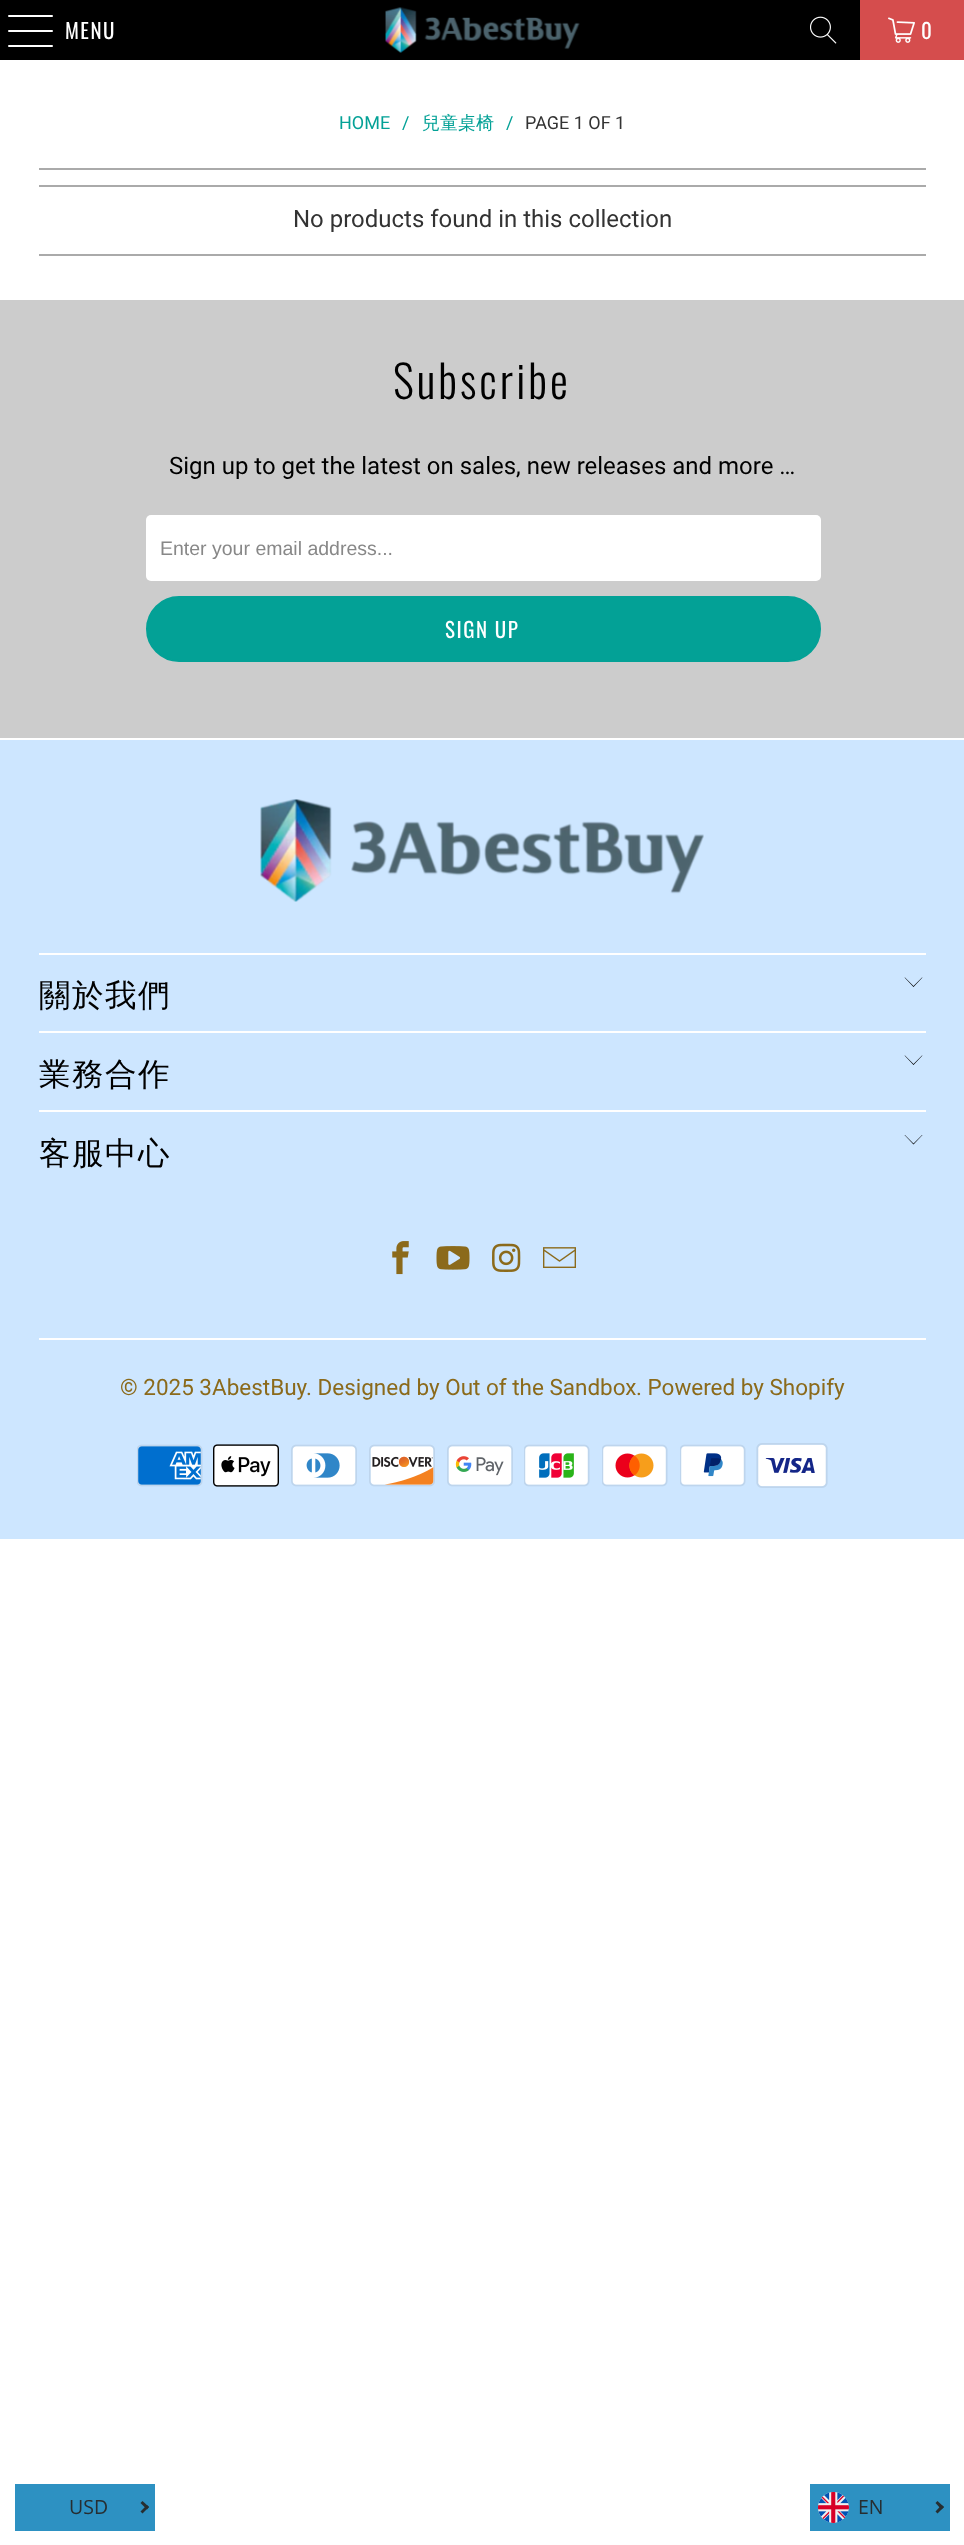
<?xml version="1.0" encoding="UTF-8"?>
<svg xmlns="http://www.w3.org/2000/svg" xmlns:xlink="http://www.w3.org/1999/xlink" width="964" height="2545">
  <rect width="100%" height="100%" fill="#ffffff" />
  <rect width="860" height="60" fill="#000000" />
  <rect x="8" y="15" width="45" height="2" rx="1" fill="#ffffff" />
  <rect x="8" y="30" width="45" height="2" rx="1" fill="#ffffff" />
  <rect x="8" y="45" width="45" height="2" rx="1" fill="#ffffff" />
  <image x="385" y="7" width="195" height="46" xlink:href="image1.png" />
  <image x="810" y="16" width="27" height="28" xlink:href="image2.png" />
  <rect x="860" width="104" height="60" fill="#d54d4d" />
  <image x="888" y="17" width="27" height="26" xlink:href="image3.png" />
  <rect x="39" y="168" width="887" height="2" fill="#aaaaaa" />
  <rect x="39" y="185" width="887" height="2" fill="#aaaaaa" />
  <rect x="39" y="254" width="887" height="2" fill="#aaaaaa" />
  <rect y="300" width="964" height="438" fill="#cccccc" />
  <rect x="146" y="515" width="675" height="66" rx="5" fill="#ffffff" />
  <rect x="147" y="597" width="673" height="64" rx="32" fill="#03a196" stroke="#03a196" stroke-width="2" />
  <rect y="740" width="964" height="799" fill="#cde6ff" />
  <image x="260" y="799" width="444" height="103" xlink:href="image4.png" />
  <rect x="39" y="953" width="887" height="2" fill="#ffffff" />
  <path d="M 913.5 987 l -9 -9.5 h 0.5 l 8.5 8.5 l 8.5 -8.5 h 0.5 z" fill="#000000" />
  <rect x="39" y="1031" width="887" height="2" fill="#ffffff" />
  <path d="M 913.5 1065 l -9 -9.5 h 0.5 l 8.5 8.5 l 8.5 -8.5 h 0.5 z" fill="#000000" />
  <rect x="39" y="1110" width="887" height="2" fill="#ffffff" />
  <path d="M 913.5 1144.5 l -9 -9.5 h 0.5 l 8.5 8.5 l 8.5 -8.5 h 0.5 z" fill="#000000" />
  <image x="392" y="1241" width="17" height="34" xlink:href="image5.png" />
  <image x="436" y="1246" width="34" height="24" xlink:href="image6.png" />
  <image x="492" y="1243" width="29" height="29" xlink:href="image7.png" />
  <image x="543" y="1247" width="33" height="21" xlink:href="image8.png" />
  <rect x="39" y="1338" width="887" height="2" fill="#ffffff" />
  <image x="137" y="1444" width="66" height="43" xlink:href="image9.png" />
  <image x="213" y="1444" width="66" height="43" xlink:href="image10.png" />
  <image x="291" y="1444" width="66" height="43" xlink:href="image11.png" />
  <image x="369" y="1444" width="66" height="43" xlink:href="image12.png" />
  <image x="447" y="1444" width="66" height="43" xlink:href="image13.png" />
  <image x="524" y="1444" width="66" height="43" xlink:href="image14.png" />
  <image x="602" y="1444" width="66" height="43" xlink:href="image15.png" />
  <image x="680" y="1444" width="66" height="43" xlink:href="image16.png" />
  <image x="756" y="1443" width="72" height="45" xlink:href="image17.png" />
  <rect x="15" y="2484" width="140" height="47" fill="#2d91c2" />
  <path d="M 142.5 2501 l 6.5 6 l -2 2.5 l -6.5 -6.5 z" fill="#272e31" />
  <path d="M 147 2505 l 2 2 l -6.5 6.5 l -2 -2 z" fill="#272e31" />
  <rect x="810" y="2484" width="140" height="47" fill="#2d91c2" />
  <image x="818" y="2492" width="31" height="31" xlink:href="image18.png" />
  <path d="M 937.5 2501 l 6.5 6 l -2.5 2.5 l -6 -6.5 z" fill="#272e31" />
  <path d="M 941.5 2505 l 2.5 2 l -6.5 6.5 l -2 -2 z" fill="#272e31" />
  <text x="65" y="39" style="font-family: Oswald; font-size: 21px; letter-spacing: 1.5px; fill: #ffffff">MENU</text>
  <text x="921" y="39" style="font-family: Oswald; font-size: 21px; letter-spacing: 1.5px; fill: #ffffff">0</text>
  <text x="339" y="129" style="font-family: Roboto; font-size: 18px; fill: #03a196">HOME</text>
  <text x="402" y="129" style="font-family: Roboto; font-size: 18px; fill: #03a196">/</text>
  <text x="422" y="129" style="font-family: WenQuanYi Zen Hei; font-size: 18px; font-weight: 500; fill: #03a196">兒童桌椅</text>
  <text x="506" y="129" style="font-family: Roboto; font-size: 18px; fill: #03a196">/</text>
  <text x="525" y="129" style="font-family: Roboto; font-size: 18px; fill: #333333">PAGE 1 OF 1</text>
  <text x="293" y="227" style="font-family: Roboto; font-size: 24px; fill: #333333">No products found in this collection</text>
  <text x="393" y="399" style="font-family: Oswald; font-size: 45px; font-weight: 300; letter-spacing: 3px; fill: #000000">Subscribe</text>
  <text x="169" y="474" style="font-family: Roboto; font-size: 24px; fill: #000000">Sign up to get the latest on sales, new releases and more …</text>
  <text x="160" y="555" style="font-family: Liberation Sans; font-size: 19.5px; fill: #888888">Enter your email address...</text>
  <text x="445" y="638" style="font-family: Oswald; font-size: 21px; letter-spacing: 1.5px; fill: #ffffff">SIGN UP</text>
  <text x="39" y="1006" style="font-family: WenQuanYi Zen Hei; font-size: 31.5px; font-weight: 500; letter-spacing: 1.5px; fill: #000000">關於我們</text>
  <text x="39" y="1085" style="font-family: WenQuanYi Zen Hei; font-size: 31.5px; font-weight: 500; letter-spacing: 1.5px; fill: #000000">業務合作</text>
  <text x="39" y="1164" style="font-family: WenQuanYi Zen Hei; font-size: 31.5px; font-weight: 500; letter-spacing: 1.5px; fill: #000000">客服中心</text>
  <text x="120" y="1395" style="font-family: Roboto; font-size: 22.5px; fill: #8b6a1b">© 2025 3AbestBuy</text>
  <text x="306" y="1395" style="font-family: Roboto; font-size: 22.5px; fill: #8b6a1b">. Designed by Out of the Sandbox</text>
  <text x="636" y="1395" style="font-family: Roboto; font-size: 22.5px; fill: #8b6a1b">. Powered by Shopify</text>
  <text x="69" y="2514" style="font-family: Open Sans; font-size: 19.5px; fill: #272e31">USD</text>
  <text x="858" y="2514" style="font-family: Open Sans; font-size: 19.5px; fill: #272e31">EN</text>
</svg>
